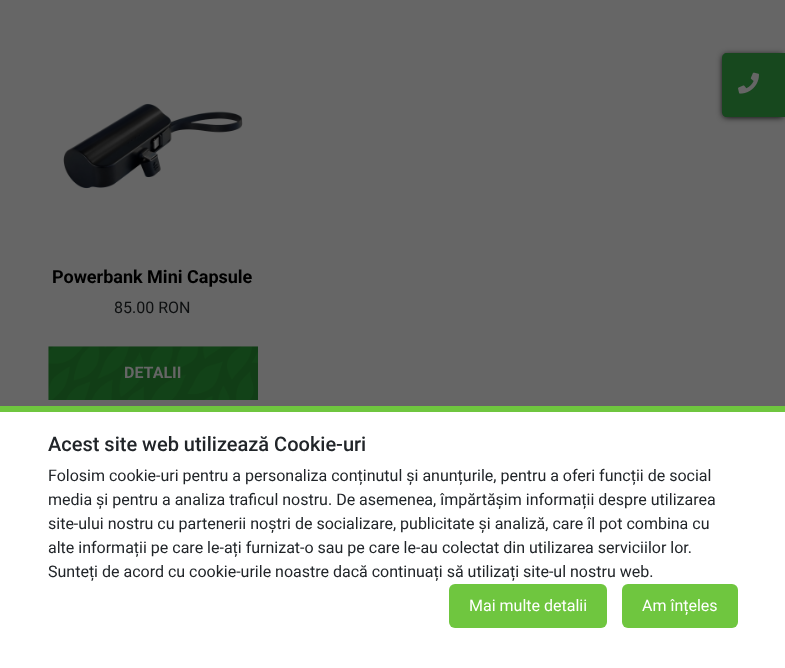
<?xml version="1.0" encoding="UTF-8"?>
<svg xmlns="http://www.w3.org/2000/svg" xmlns:xlink="http://www.w3.org/1999/xlink" width="785" height="668">
  <rect width="100%" height="100%" fill="#666666" />
  <rect x="723" y="55" width="61" height="62" rx="4" fill="#000000" filter="blur(3px)" />
  <path d="M 727 53 h 58 v 64 h -58 c -3 0 -5 -2 -5 -5 v -54 c 0 -3 2 -5 5 -5 z" fill="#17481e" />
  <image x="738" y="72" width="21" height="22" xlink:href="image1.png" />
  <image x="63" y="103" width="180" height="86" xlink:href="image2.png" />
  <image x="48" y="346" width="210" height="54" xlink:href="image3.png" />
  <rect y="412" width="785" height="256" fill="#ffffff" />
  <rect y="406" width="785" height="6" fill="#6fc63f" />
  <rect x="449" y="584" width="158" height="44" rx="6" fill="#6fc63f" />
  <rect x="622" y="584" width="116" height="44" rx="6" fill="#6fc63f" />
  <text x="52" y="283" style="font-family: Roboto; font-size: 18px; font-weight: bold; fill: #000000">Powerbank Mini Capsule</text>
  <text x="114" y="313" style="font-family: Roboto; font-size: 16px; fill: #0d0f10">85.00 RON</text>
  <text x="124" y="378" style="font-family: Roboto; font-size: 16px; font-weight: bold; fill: #666666">DETALII</text>
  <text x="48" y="451" style="font-family: Roboto; font-size: 20px; font-weight: 500; fill: #212529">Acest site web utilizează Cookie-uri</text>
  <text x="48" y="481" style="font-family: Roboto; font-size: 16px; fill: #212529">Folosim cookie-uri pentru a personaliza conținutul și anunțurile, pentru a oferi funcții de social</text>
  <text x="48" y="505" style="font-family: Roboto; font-size: 16px; fill: #212529">media și pentru a analiza traficul nostru. De asemenea, împărtășim informații despre utilizarea</text>
  <text x="48" y="529" style="font-family: Roboto; font-size: 16px; fill: #212529">site-ului nostru cu partenerii noștri de socializare, publicitate și analiză, care îl pot combina cu</text>
  <text x="48" y="553" style="font-family: Roboto; font-size: 16px; fill: #212529">alte informații pe care le-ați furnizat-o sau pe care le-au colectat din utilizarea serviciilor lor.</text>
  <text x="48" y="577" style="font-family: Roboto; font-size: 16px; fill: #212529">Sunteți de acord cu cookie-urile noastre dacă continuați să utilizați site-ul nostru web.</text>
  <text x="469" y="611" style="font-family: Roboto; font-size: 16px; fill: #ffffff">Mai multe detalii</text>
  <text x="642" y="611" style="font-family: Roboto; font-size: 16px; fill: #ffffff">Am înțeles</text>
</svg>
